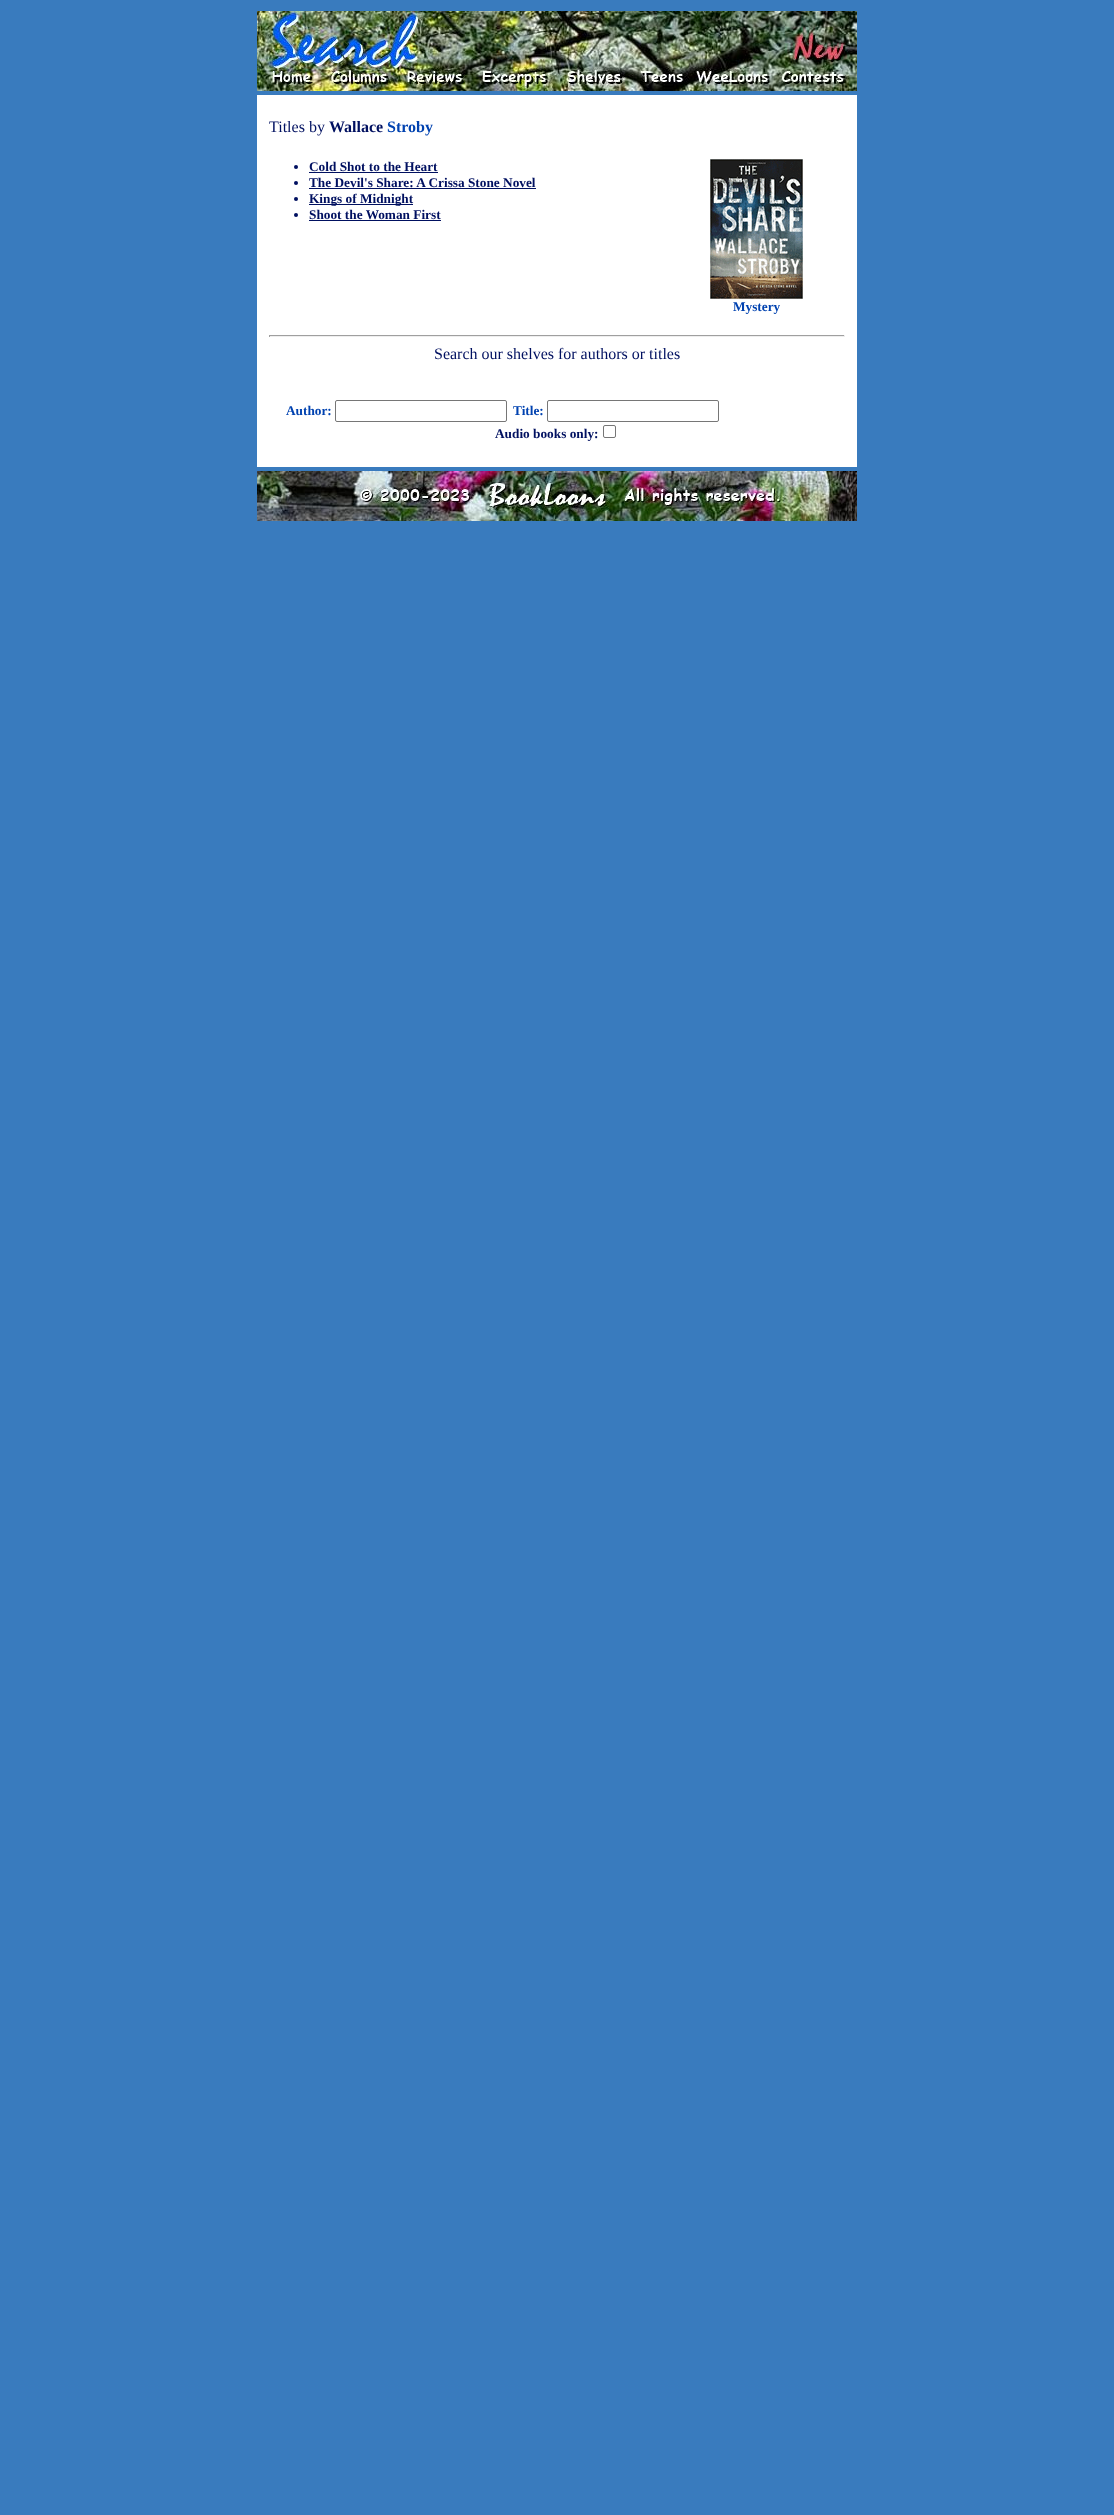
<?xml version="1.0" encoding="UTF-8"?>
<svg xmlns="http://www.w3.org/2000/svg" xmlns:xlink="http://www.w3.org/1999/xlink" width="1114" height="2515">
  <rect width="100%" height="100%" fill="#397bbe" />
  <image x="257" y="11" width="600" height="80" xlink:href="image1.png" />
  <rect x="257" y="95" width="600" height="372" fill="#ffffff" />
  <circle cx="296" cy="167" r="2" fill="#001060" />
  <rect x="309" y="172" width="129" height="1" fill="#001060" />
  <circle cx="296" cy="183" r="2" fill="#001060" />
  <rect x="309" y="188" width="227" height="1" fill="#001060" />
  <circle cx="296" cy="199" r="2" fill="#001060" />
  <rect x="309" y="204" width="104" height="1" fill="#001060" />
  <circle cx="296" cy="215" r="2" fill="#001060" />
  <rect x="309" y="220" width="132" height="1" fill="#001060" />
  <image x="710" y="159" width="93" height="140" xlink:href="image2.png" />
  <rect x="269" y="335" width="576" height="1" fill="#9f9f9f" />
  <rect x="844" y="335" width="1" height="2" fill="#eeeeee" />
  <rect x="269" y="336" width="576" height="1" fill="#eeeeee" />
  <rect x="269" y="335" width="1" height="2" fill="#9f9f9f" />
  <rect x="335.5" y="400.5" width="171" height="21" rx="1.5" fill="none" stroke="#767676" />
  <rect x="547.5" y="400.5" width="171" height="21" rx="1.5" fill="none" stroke="#767676" />
  <rect x="603.5" y="425.5" width="12" height="12" rx="1.5" fill="none" stroke="#767676" />
  <image x="257" y="471" width="600" height="50" xlink:href="image3.png" />
  <text x="269" y="132" style="font-family: Liberation Serif; font-size: 16px; fill: #001060">Titles by</text>
  <text x="329" y="132" style="font-family: Liberation Serif; font-size: 16px; font-weight: bold; fill: #001060">Wallace</text>
  <text x="387" y="132" style="font-family: Liberation Serif; font-size: 16px; font-weight: bold; fill: #0042b0">Stroby</text>
  <text x="309" y="171" style="font-family: Liberation Serif; font-size: 13.3px; font-weight: bold; fill: #001060">Cold Shot to the Heart</text>
  <text x="309" y="187" style="font-family: Liberation Serif; font-size: 13.3px; font-weight: bold; fill: #001060">The Devil's Share: A Crissa Stone Novel</text>
  <text x="309" y="203" style="font-family: Liberation Serif; font-size: 13.3px; font-weight: bold; fill: #001060">Kings of Midnight</text>
  <text x="309" y="219" style="font-family: Liberation Serif; font-size: 13.3px; font-weight: bold; fill: #001060">Shoot the Woman First</text>
  <text x="733" y="311" style="font-family: Liberation Serif; font-size: 13.3px; font-weight: bold; fill: #0042b0">Mystery</text>
  <text x="434" y="359" style="font-family: Liberation Serif; font-size: 16px; fill: #001060">Search our shelves for authors or titles</text>
  <text x="286" y="415" style="font-family: Liberation Serif; font-size: 13.3px; font-weight: bold; fill: #0042b0">Author:</text>
  <text x="513" y="415" style="font-family: Liberation Serif; font-size: 13.3px; font-weight: bold; fill: #0042b0">Title:</text>
  <text x="495" y="438" style="font-family: Liberation Serif; font-size: 13.3px; font-weight: bold; fill: #001060">Audio books only:</text>
</svg>
